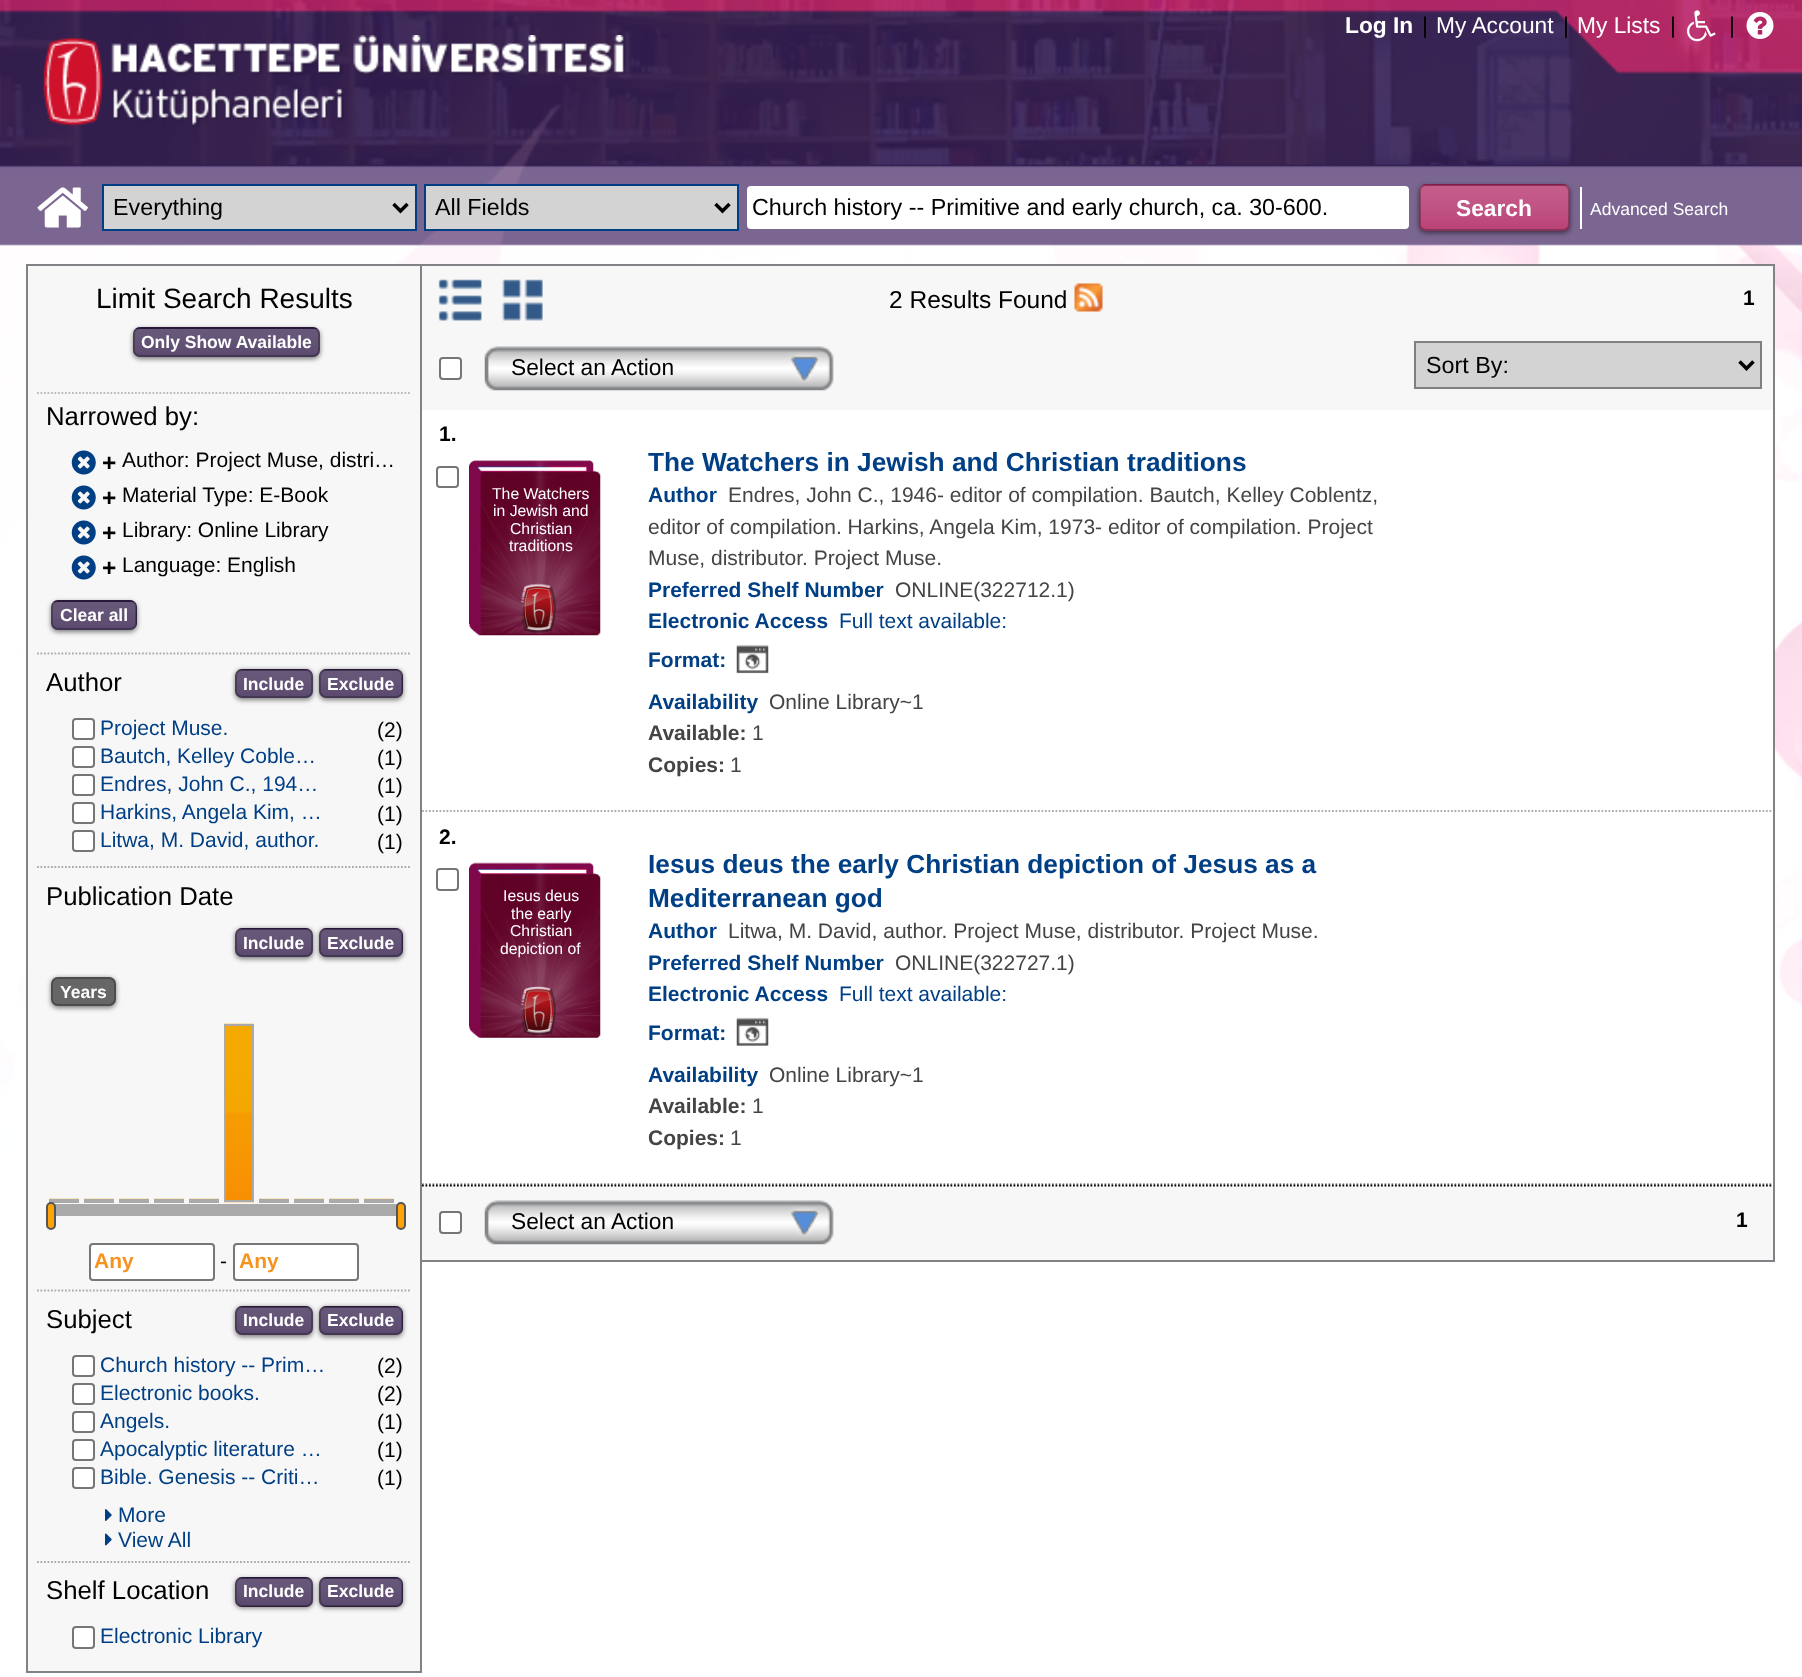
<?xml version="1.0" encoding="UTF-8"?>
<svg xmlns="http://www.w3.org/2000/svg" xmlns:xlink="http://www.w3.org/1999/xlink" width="1802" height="1677">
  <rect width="100%" height="100%" fill="#ffffff" />
  <image x="0" y="0" width="1802" height="1162" xlink:href="image1.png" />
  <image x="1687" y="10" width="29" height="32" xlink:href="image2.png" />
  <image x="1746" y="12" width="28" height="27" xlink:href="image3.png" />
  <image x="43" y="35" width="583" height="92" xlink:href="image4.png" />
  <image x="37" y="187" width="51" height="41" xlink:href="image5.png" />
  <rect x="103" y="185" width="313" height="45" fill="#d3d3d3" stroke="#013f85" stroke-width="2" />
  <path d="M 393.5 204 l 7 7 l 7 -7" fill="none" stroke="#000000" stroke-width="3.5" />
  <rect x="425" y="185" width="313" height="45" fill="#d3d3d3" stroke="#013f85" stroke-width="2" />
  <path d="M 715.5 204 l 7 7 l 7 -7" fill="none" stroke="#000000" stroke-width="3.5" />
  <rect x="748" y="187" width="660" height="41" rx="3" fill="#ffffff" stroke="#ffffff" stroke-width="2" />
  <rect x="1419" y="186" width="151" height="47" rx="7" fill="#000000" fill-opacity="0.5" filter="blur(2.5px)" />
  <rect x="1419" y="184" width="151" height="47" rx="7" fill="#b12865" />
  <image x="1419" y="185" width="151" height="46" xlink:href="image6.png" />
  <rect x="1420" y="185" width="149" height="45" rx="6" fill="none" stroke="#000000" stroke-opacity="0.25" stroke-width="2" />
  <rect x="1580" y="187" width="2" height="42" fill="#ffffff" />
  <rect x="27" y="265" width="394" height="1407" fill="#f7f7f7" stroke="#808285" stroke-width="2" />
  <rect x="133" y="329" width="187" height="30" rx="7" fill="#000000" fill-opacity="0.5" filter="blur(2.5px)" />
  <rect x="133" y="327" width="187" height="30" rx="7" fill="#36214e" />
  <image x="133" y="329" width="187" height="28" xlink:href="image7.png" />
  <rect x="134" y="328" width="185" height="28" rx="6" fill="none" stroke="#000000" stroke-opacity="0.25" stroke-width="2" />
  <path d="M 37 393 h 374" fill="none" stroke="#bbbbbb" stroke-width="1.8" stroke-dasharray="1.75 1.75" />
  <image x="71" y="450" width="25" height="25" xlink:href="image8.png" />
  <image x="71" y="485" width="25" height="25" xlink:href="image8.png" />
  <image x="71" y="520" width="25" height="25" xlink:href="image8.png" />
  <image x="71" y="555" width="25" height="25" xlink:href="image8.png" />
  <rect x="51" y="602" width="86" height="30" rx="7" fill="#000000" fill-opacity="0.5" filter="blur(2.5px)" />
  <rect x="51" y="600" width="86" height="30" rx="7" fill="#36214e" />
  <image x="51" y="602" width="86" height="28" xlink:href="image9.png" />
  <rect x="52" y="601" width="84" height="28" rx="6" fill="none" stroke="#000000" stroke-opacity="0.25" stroke-width="2" />
  <path d="M 37 653.5 h 374" fill="none" stroke="#aaaaaa" stroke-width="1.8" stroke-dasharray="1.75 1.75" />
  <rect x="235" y="670" width="78" height="30" rx="7" fill="#000000" fill-opacity="0.5" filter="blur(2.5px)" />
  <rect x="235" y="669" width="78" height="29" rx="7" fill="#36214e" />
  <image x="235" y="670" width="78" height="28" xlink:href="image10.png" />
  <rect x="236" y="670" width="76" height="27" rx="6" fill="none" stroke="#000000" stroke-opacity="0.25" stroke-width="2" />
  <rect x="319" y="670" width="84" height="30" rx="7" fill="#000000" fill-opacity="0.5" filter="blur(2.5px)" />
  <rect x="319" y="669" width="84" height="29" rx="7" fill="#36214e" />
  <image x="319" y="670" width="84" height="28" xlink:href="image11.png" />
  <rect x="320" y="670" width="82" height="27" rx="6" fill="none" stroke="#000000" stroke-opacity="0.25" stroke-width="2" />
  <rect x="73" y="719" width="21" height="20" rx="3" fill="#ffffff" stroke="#767676" stroke-width="2" />
  <rect x="73" y="747" width="21" height="20" rx="3" fill="#ffffff" stroke="#767676" stroke-width="2" />
  <rect x="73" y="775" width="21" height="20" rx="3" fill="#ffffff" stroke="#767676" stroke-width="2" />
  <rect x="73" y="803" width="21" height="20" rx="3" fill="#ffffff" stroke="#767676" stroke-width="2" />
  <rect x="73" y="831" width="21" height="20" rx="3" fill="#ffffff" stroke="#767676" stroke-width="2" />
  <path d="M 37 867 h 374" fill="none" stroke="#aaaaaa" stroke-width="1.8" stroke-dasharray="1.75 1.75" />
  <rect x="235" y="929" width="78" height="30" rx="7" fill="#000000" fill-opacity="0.5" filter="blur(2.5px)" />
  <rect x="235" y="928" width="78" height="29" rx="7" fill="#36214e" />
  <image x="235" y="929" width="78" height="28" xlink:href="image10.png" />
  <rect x="236" y="929" width="76" height="27" rx="6" fill="none" stroke="#000000" stroke-opacity="0.25" stroke-width="2" />
  <rect x="319" y="929" width="84" height="30" rx="7" fill="#000000" fill-opacity="0.5" filter="blur(2.5px)" />
  <rect x="319" y="928" width="84" height="29" rx="7" fill="#36214e" />
  <image x="319" y="929" width="84" height="28" xlink:href="image11.png" />
  <rect x="320" y="929" width="82" height="27" rx="6" fill="none" stroke="#000000" stroke-opacity="0.25" stroke-width="2" />
  <rect x="51" y="978" width="65" height="30" rx="7" fill="#000000" fill-opacity="0.5" filter="blur(2.5px)" />
  <rect x="51" y="977" width="65" height="29" rx="7" fill="#666666" />
  <rect x="52" y="978" width="63" height="27" rx="6" fill="none" stroke="#000000" stroke-opacity="0.25" stroke-width="2" />
  <image x="49" y="1198" width="30" height="1" xlink:href="image12.png" />
  <rect x="49" y="1199" width="30" height="4" fill="#aaaaaa" />
  <image x="84" y="1198" width="30" height="1" xlink:href="image12.png" />
  <rect x="84" y="1199" width="30" height="4" fill="#aaaaaa" />
  <image x="119" y="1198" width="30" height="1" xlink:href="image12.png" />
  <rect x="119" y="1199" width="30" height="4" fill="#aaaaaa" />
  <image x="154" y="1198" width="30" height="1" xlink:href="image12.png" />
  <rect x="154" y="1199" width="30" height="4" fill="#aaaaaa" />
  <image x="189" y="1198" width="30" height="1" xlink:href="image12.png" />
  <rect x="189" y="1199" width="30" height="4" fill="#aaaaaa" />
  <image x="224" y="1023" width="30" height="180" xlink:href="image13.png" />
  <rect x="225" y="1025" width="28" height="176" fill="none" stroke="#aaaaaa" stroke-width="2" />
  <image x="259" y="1198" width="30" height="1" xlink:href="image12.png" />
  <rect x="259" y="1199" width="30" height="4" fill="#aaaaaa" />
  <image x="294" y="1198" width="30" height="1" xlink:href="image12.png" />
  <rect x="294" y="1199" width="30" height="4" fill="#aaaaaa" />
  <image x="329" y="1198" width="30" height="1" xlink:href="image12.png" />
  <rect x="329" y="1199" width="30" height="4" fill="#aaaaaa" />
  <image x="364" y="1198" width="30" height="1" xlink:href="image12.png" />
  <rect x="364" y="1199" width="30" height="4" fill="#aaaaaa" />
  <rect x="48" y="1205" width="352" height="10" rx="5" fill="none" stroke="#aaaaaa" stroke-width="2" />
  <rect x="55" y="1206" width="342" height="8" fill="#a9a9a9" />
  <rect x="47" y="1203" width="8" height="26" rx="4" fill="#ffa406" stroke="#555555" stroke-width="2" />
  <rect x="397" y="1203" width="8" height="26" rx="4" fill="#ffa406" stroke="#555555" stroke-width="2" />
  <rect x="90" y="1244" width="124" height="36" rx="3" fill="#ffffff" stroke="#767676" stroke-width="2" />
  <rect x="234" y="1244" width="124" height="36" rx="3" fill="#ffffff" stroke="#767676" stroke-width="2" />
  <path d="M 37 1290.5 h 374" fill="none" stroke="#aaaaaa" stroke-width="1.8" stroke-dasharray="1.75 1.75" />
  <rect x="235" y="1307" width="78" height="30" rx="7" fill="#000000" fill-opacity="0.5" filter="blur(2.5px)" />
  <rect x="235" y="1306" width="78" height="29" rx="7" fill="#36214e" />
  <image x="235" y="1307" width="78" height="28" xlink:href="image10.png" />
  <rect x="236" y="1307" width="76" height="27" rx="6" fill="none" stroke="#000000" stroke-opacity="0.25" stroke-width="2" />
  <rect x="319" y="1307" width="84" height="30" rx="7" fill="#000000" fill-opacity="0.5" filter="blur(2.5px)" />
  <rect x="319" y="1306" width="84" height="29" rx="7" fill="#36214e" />
  <image x="319" y="1307" width="84" height="28" xlink:href="image11.png" />
  <rect x="320" y="1307" width="82" height="27" rx="6" fill="none" stroke="#000000" stroke-opacity="0.25" stroke-width="2" />
  <rect x="73" y="1356" width="21" height="20" rx="3" fill="#ffffff" stroke="#767676" stroke-width="2" />
  <rect x="73" y="1384" width="21" height="20" rx="3" fill="#ffffff" stroke="#767676" stroke-width="2" />
  <rect x="73" y="1412" width="21" height="20" rx="3" fill="#ffffff" stroke="#767676" stroke-width="2" />
  <rect x="73" y="1440" width="21" height="20" rx="3" fill="#ffffff" stroke="#767676" stroke-width="2" />
  <rect x="73" y="1468" width="21" height="20" rx="3" fill="#ffffff" stroke="#767676" stroke-width="2" />
  <image x="105" y="1509" width="7" height="12" xlink:href="image14.png" />
  <image x="105" y="1533" width="7" height="13" xlink:href="image15.png" />
  <path d="M 37 1562 h 374" fill="none" stroke="#aaaaaa" stroke-width="1.8" stroke-dasharray="1.75 1.75" />
  <rect x="235" y="1579" width="78" height="29" rx="7" fill="#000000" fill-opacity="0.5" filter="blur(2.5px)" />
  <rect x="235" y="1577" width="78" height="30" rx="7" fill="#36214e" />
  <image x="235" y="1578" width="78" height="29" xlink:href="image16.png" />
  <rect x="236" y="1578" width="76" height="28" rx="6" fill="none" stroke="#000000" stroke-opacity="0.25" stroke-width="2" />
  <rect x="319" y="1579" width="84" height="29" rx="7" fill="#000000" fill-opacity="0.5" filter="blur(2.5px)" />
  <rect x="319" y="1577" width="84" height="30" rx="7" fill="#36214e" />
  <image x="319" y="1578" width="84" height="29" xlink:href="image17.png" />
  <rect x="320" y="1578" width="82" height="28" rx="6" fill="none" stroke="#000000" stroke-opacity="0.25" stroke-width="2" />
  <rect x="73" y="1627" width="21" height="21" rx="3" fill="#ffffff" stroke="#767676" stroke-width="2" />
  <rect x="421" y="265" width="1353" height="996" fill="#f7f7f7" stroke="#808285" stroke-width="2" />
  <image x="438" y="279" width="44" height="42" xlink:href="image18.png" />
  <image x="502" y="279" width="41" height="42" xlink:href="image19.png" />
  <rect x="440" y="358" width="21" height="21" rx="3" fill="#ffffff" stroke="#767676" stroke-width="2" />
  <image x="484" y="346" width="350" height="45" xlink:href="image20.png" />
  <image x="1074" y="283" width="29" height="29" xlink:href="image21.png" />
  <rect x="1415" y="342" width="346" height="46" fill="#d3d3d3" stroke="#808080" stroke-width="2" />
  <path d="M 1739.5 361.5 l 7 7 l 7 -7" fill="none" stroke="#000000" stroke-width="3.5" />
  <rect x="422" y="410" width="1351" height="775" fill="#ffffff" />
  <path d="M 422 811 h 1351" fill="none" stroke="#acacac" stroke-width="1.8" stroke-dasharray="1.75 1.75" />
  <rect x="437" y="467" width="21" height="20" rx="3" fill="none" stroke="#767676" stroke-width="2" />
  <image x="469" y="460" width="132" height="176" xlink:href="image22.png" />
  <image x="736" y="645" width="33" height="29" xlink:href="image23.png" />
  <path d="M 422 1184 h 1351" fill="none" stroke="#acacac" stroke-width="1.8" stroke-dasharray="1.75 1.75" />
  <rect x="437" y="869" width="21" height="21" rx="3" fill="none" stroke="#767676" stroke-width="2" />
  <image x="469" y="862" width="132" height="176" xlink:href="image24.png" />
  <image x="736" y="1017" width="33" height="29" xlink:href="image25.png" />
  <path d="M 422 1185.5 h 1351" fill="none" stroke="#000000" stroke-width="1.8" stroke-dasharray="1.75 1.75" />
  <rect x="440" y="1212" width="21" height="21" rx="3" fill="#ffffff" stroke="#767676" stroke-width="2" />
  <image x="484" y="1200" width="350" height="45" xlink:href="image20.png" />
  <text x="1345" y="33" style="font-family: Liberation Sans; font-size: 22.75px; font-weight: bold; fill: #ffffff">Log In</text>
  <text x="1422" y="33" style="font-family: Liberation Sans; font-size: 22.75px; fill: #000000">|</text>
  <text x="1436" y="33" style="font-family: Liberation Sans; font-size: 22.75px; fill: #ffffff">My Account</text>
  <text x="1563" y="33" style="font-family: Liberation Sans; font-size: 22.75px; fill: #000000">|</text>
  <text x="1577" y="33" style="font-family: Liberation Sans; font-size: 22.75px; fill: #ffffff">My Lists</text>
  <text x="1670" y="33" style="font-family: Liberation Sans; font-size: 22.75px; fill: #000000">|</text>
  <text x="1729" y="33" style="font-family: Liberation Sans; font-size: 22.75px; fill: #000000">|</text>
  <text x="113" y="215" style="font-family: Liberation Sans; font-size: 23.3px; fill: #000000">Everything</text>
  <text x="435" y="215" style="font-family: Liberation Sans; font-size: 23.3px; fill: #000000">All Fields</text>
  <text x="752" y="215" style="font-family: Liberation Sans; font-size: 23.3px; fill: #000000">Church history -- Primitive and early church, ca. 30-600.</text>
  <text x="1456" y="216" style="font-family: Liberation Sans; font-size: 22.75px; font-weight: bold; fill: #ffffff">Search</text>
  <text x="1590" y="215" style="font-family: Liberation Sans; font-size: 17.5px; fill: #ffffff">Advanced Search</text>
  <text x="96" y="308" style="font-family: Liberation Sans; font-size: 28px; fill: #000000">Limit Search Results</text>
  <text x="141" y="348" style="font-family: Liberation Sans; font-size: 17.5px; font-weight: bold; fill: #ffffff">Only Show Available</text>
  <text x="46" y="425" style="font-family: Liberation Sans; font-size: 25.75px; fill: #000000">Narrowed by:</text>
  <text x="102" y="471" style="font-family: Liberation Sans; font-size: 24.5px; font-weight: bold; fill: #000000">+</text>
  <text x="122" y="467" style="font-family: Liberation Sans; font-size: 21px; fill: #000000">Author: Project Muse, distri…</text>
  <text x="102" y="506" style="font-family: Liberation Sans; font-size: 24.5px; font-weight: bold; fill: #000000">+</text>
  <text x="122" y="502" style="font-family: Liberation Sans; font-size: 21px; fill: #000000">Material Type: E-Book</text>
  <text x="102" y="541" style="font-family: Liberation Sans; font-size: 24.5px; font-weight: bold; fill: #000000">+</text>
  <text x="122" y="537" style="font-family: Liberation Sans; font-size: 21px; fill: #000000">Library: Online Library</text>
  <text x="102" y="576" style="font-family: Liberation Sans; font-size: 24.5px; font-weight: bold; fill: #000000">+</text>
  <text x="122" y="572" style="font-family: Liberation Sans; font-size: 21px; fill: #000000">Language: English</text>
  <text x="60" y="621" style="font-family: Liberation Sans; font-size: 17.5px; font-weight: bold; fill: #ffffff">Clear all</text>
  <text x="46" y="691" style="font-family: Liberation Sans; font-size: 25.75px; fill: #000000">Author</text>
  <text x="243" y="690" style="font-family: Liberation Sans; font-size: 17.5px; font-weight: bold; fill: #ffffff">Include</text>
  <text x="327" y="690" style="font-family: Liberation Sans; font-size: 17.5px; font-weight: bold; fill: #ffffff">Exclude</text>
  <text x="100" y="735" style="font-family: Liberation Sans; font-size: 21px; fill: #013f85">Project Muse.</text>
  <text x="377" y="737" style="font-family: Liberation Sans; font-size: 21px; fill: #000000">(2)</text>
  <text x="100" y="763" style="font-family: Liberation Sans; font-size: 21px; fill: #013f85">Bautch, Kelley Coble…</text>
  <text x="377" y="765" style="font-family: Liberation Sans; font-size: 21px; fill: #000000">(1)</text>
  <text x="100" y="791" style="font-family: Liberation Sans; font-size: 21px; fill: #013f85">Endres, John C., 194…</text>
  <text x="377" y="793" style="font-family: Liberation Sans; font-size: 21px; fill: #000000">(1)</text>
  <text x="100" y="819" style="font-family: Liberation Sans; font-size: 21px; fill: #013f85">Harkins, Angela Kim, …</text>
  <text x="377" y="821" style="font-family: Liberation Sans; font-size: 21px; fill: #000000">(1)</text>
  <text x="100" y="847" style="font-family: Liberation Sans; font-size: 21px; fill: #013f85">Litwa, M. David, author.</text>
  <text x="377" y="849" style="font-family: Liberation Sans; font-size: 21px; fill: #000000">(1)</text>
  <text x="46" y="905" style="font-family: Liberation Sans; font-size: 25.75px; fill: #000000">Publication Date</text>
  <text x="243" y="949" style="font-family: Liberation Sans; font-size: 17.5px; font-weight: bold; fill: #ffffff">Include</text>
  <text x="327" y="949" style="font-family: Liberation Sans; font-size: 17.5px; font-weight: bold; fill: #ffffff">Exclude</text>
  <text x="60" y="998" style="font-family: Liberation Sans; font-size: 17.5px; font-weight: bold; fill: #ffffff">Years</text>
  <text x="94" y="1268" style="font-family: Liberation Sans; font-size: 21px; font-weight: bold; fill: #f6931f">Any</text>
  <text x="220" y="1268" style="font-family: Liberation Sans; font-size: 21px; fill: #000000">-</text>
  <text x="239" y="1268" style="font-family: Liberation Sans; font-size: 21px; font-weight: bold; fill: #f6931f">Any</text>
  <text x="46" y="1328" style="font-family: Liberation Sans; font-size: 25.75px; fill: #000000">Subject</text>
  <text x="243" y="1326" style="font-family: Liberation Sans; font-size: 17.5px; font-weight: bold; fill: #ffffff">Include</text>
  <text x="327" y="1326" style="font-family: Liberation Sans; font-size: 17.5px; font-weight: bold; fill: #ffffff">Exclude</text>
  <text x="100" y="1372" style="font-family: Liberation Sans; font-size: 21px; fill: #013f85">Church history -- Prim…</text>
  <text x="377" y="1373" style="font-family: Liberation Sans; font-size: 21px; fill: #000000">(2)</text>
  <text x="100" y="1400" style="font-family: Liberation Sans; font-size: 21px; fill: #013f85">Electronic books.</text>
  <text x="377" y="1401" style="font-family: Liberation Sans; font-size: 21px; fill: #000000">(2)</text>
  <text x="100" y="1428" style="font-family: Liberation Sans; font-size: 21px; fill: #013f85">Angels.</text>
  <text x="377" y="1429" style="font-family: Liberation Sans; font-size: 21px; fill: #000000">(1)</text>
  <text x="100" y="1456" style="font-family: Liberation Sans; font-size: 21px; fill: #013f85">Apocalyptic literature …</text>
  <text x="377" y="1457" style="font-family: Liberation Sans; font-size: 21px; fill: #000000">(1)</text>
  <text x="100" y="1484" style="font-family: Liberation Sans; font-size: 21px; fill: #013f85">Bible. Genesis -- Criti…</text>
  <text x="377" y="1485" style="font-family: Liberation Sans; font-size: 21px; fill: #000000">(1)</text>
  <text x="118" y="1522" style="font-family: Liberation Sans; font-size: 21px; fill: #013f85">More</text>
  <text x="118" y="1547" style="font-family: Liberation Sans; font-size: 21px; fill: #013f85">View All</text>
  <text x="46" y="1599" style="font-family: Liberation Sans; font-size: 25.75px; fill: #000000">Shelf Location</text>
  <text x="243" y="1597" style="font-family: Liberation Sans; font-size: 17.5px; font-weight: bold; fill: #ffffff">Include</text>
  <text x="327" y="1597" style="font-family: Liberation Sans; font-size: 17.5px; font-weight: bold; fill: #ffffff">Exclude</text>
  <text x="100" y="1643" style="font-family: Liberation Sans; font-size: 21px; fill: #013f85">Electronic Library</text>
  <text x="511" y="375" style="font-family: Liberation Sans; font-size: 22.75px; fill: #000000">Select an Action</text>
  <text x="889" y="308" style="font-family: Liberation Sans; font-size: 24.5px; fill: #000000">2 Results Found</text>
  <text x="1743" y="305" style="font-family: Liberation Sans; font-size: 21px; font-weight: bold; fill: #000000">1</text>
  <text x="1426" y="373" style="font-family: Liberation Sans; font-size: 23.3px; fill: #000000">Sort By:</text>
  <text x="439" y="441" style="font-family: Liberation Sans; font-size: 21px; font-weight: bold; fill: #000000">1.</text>
  <text x="492" y="499" style="font-family: Liberation Sans; font-size: 15.75px; fill: #ffffff">The Watchers</text>
  <text x="493" y="516" style="font-family: Liberation Sans; font-size: 15.75px; fill: #ffffff">in Jewish and</text>
  <text x="510" y="534" style="font-family: Liberation Sans; font-size: 15.75px; fill: #ffffff">Christian</text>
  <text x="509" y="551" style="font-family: Liberation Sans; font-size: 15.75px; fill: #ffffff">traditions</text>
  <text x="648" y="471" style="font-family: Liberation Sans; font-size: 26.25px; font-weight: bold; fill: #013f85">The Watchers in Jewish and Christian traditions</text>
  <text x="648" y="502" style="font-family: Liberation Sans; font-size: 21px; font-weight: bold; fill: #013f85">Author</text>
  <text x="728" y="502" style="font-family: Liberation Sans; font-size: 21px; fill: #444444">Endres, John C., 1946- editor of compilation. Bautch, Kelley Coblentz,</text>
  <text x="648" y="534" style="font-family: Liberation Sans; font-size: 21px; fill: #444444">editor of compilation. Harkins, Angela Kim, 1973- editor of compilation. Project</text>
  <text x="648" y="565" style="font-family: Liberation Sans; font-size: 21px; fill: #444444">Muse, distributor. Project Muse.</text>
  <text x="648" y="597" style="font-family: Liberation Sans; font-size: 21px; font-weight: bold; fill: #013f85">Preferred Shelf Number</text>
  <text x="895" y="597" style="font-family: Liberation Sans; font-size: 21px; fill: #444444">ONLINE(322712.1)</text>
  <text x="648" y="628" style="font-family: Liberation Sans; font-size: 21px; font-weight: bold; fill: #013f85">Electronic Access</text>
  <text x="839" y="628" style="font-family: Liberation Sans; font-size: 21px; fill: #013f85">Full text available:</text>
  <text x="648" y="667" style="font-family: Liberation Sans; font-size: 21px; font-weight: bold; fill: #013f85">Format:</text>
  <text x="648" y="709" style="font-family: Liberation Sans; font-size: 21px; font-weight: bold; fill: #013f85">Availability</text>
  <text x="769" y="709" style="font-family: Liberation Sans; font-size: 21px; fill: #444444">Online Library~1</text>
  <text x="648" y="740" style="font-family: Liberation Sans; font-size: 21px; font-weight: bold; fill: #444444">Available:</text>
  <text x="752" y="740" style="font-family: Liberation Sans; font-size: 21px; fill: #444444">1</text>
  <text x="648" y="772" style="font-family: Liberation Sans; font-size: 21px; font-weight: bold; fill: #444444">Copies:</text>
  <text x="730" y="772" style="font-family: Liberation Sans; font-size: 21px; fill: #444444">1</text>
  <text x="439" y="844" style="font-family: Liberation Sans; font-size: 21px; font-weight: bold; fill: #000000">2.</text>
  <text x="503" y="901" style="font-family: Liberation Sans; font-size: 15.75px; fill: #ffffff">Iesus deus</text>
  <text x="511" y="919" style="font-family: Liberation Sans; font-size: 15.75px; fill: #ffffff">the early</text>
  <text x="510" y="936" style="font-family: Liberation Sans; font-size: 15.75px; fill: #ffffff">Christian</text>
  <text x="500" y="954" style="font-family: Liberation Sans; font-size: 15.75px; fill: #ffffff">depiction of</text>
  <text x="648" y="873" style="font-family: Liberation Sans; font-size: 26.25px; font-weight: bold; fill: #013f85">Iesus deus the early Christian depiction of Jesus as a</text>
  <text x="648" y="907" style="font-family: Liberation Sans; font-size: 26.25px; font-weight: bold; fill: #013f85">Mediterranean god</text>
  <text x="648" y="938" style="font-family: Liberation Sans; font-size: 21px; font-weight: bold; fill: #013f85">Author</text>
  <text x="728" y="938" style="font-family: Liberation Sans; font-size: 21px; fill: #444444">Litwa, M. David, author. Project Muse, distributor. Project Muse.</text>
  <text x="648" y="970" style="font-family: Liberation Sans; font-size: 21px; font-weight: bold; fill: #013f85">Preferred Shelf Number</text>
  <text x="895" y="970" style="font-family: Liberation Sans; font-size: 21px; fill: #444444">ONLINE(322727.1)</text>
  <text x="648" y="1001" style="font-family: Liberation Sans; font-size: 21px; font-weight: bold; fill: #013f85">Electronic Access</text>
  <text x="839" y="1001" style="font-family: Liberation Sans; font-size: 21px; fill: #013f85">Full text available:</text>
  <text x="648" y="1040" style="font-family: Liberation Sans; font-size: 21px; font-weight: bold; fill: #013f85">Format:</text>
  <text x="648" y="1082" style="font-family: Liberation Sans; font-size: 21px; font-weight: bold; fill: #013f85">Availability</text>
  <text x="769" y="1082" style="font-family: Liberation Sans; font-size: 21px; fill: #444444">Online Library~1</text>
  <text x="648" y="1113" style="font-family: Liberation Sans; font-size: 21px; font-weight: bold; fill: #444444">Available:</text>
  <text x="752" y="1113" style="font-family: Liberation Sans; font-size: 21px; fill: #444444">1</text>
  <text x="648" y="1145" style="font-family: Liberation Sans; font-size: 21px; font-weight: bold; fill: #444444">Copies:</text>
  <text x="730" y="1145" style="font-family: Liberation Sans; font-size: 21px; fill: #444444">1</text>
  <text x="511" y="1229" style="font-family: Liberation Sans; font-size: 22.75px; fill: #000000">Select an Action</text>
  <text x="1736" y="1227" style="font-family: Liberation Sans; font-size: 21px; font-weight: bold; fill: #000000">1</text>
</svg>
